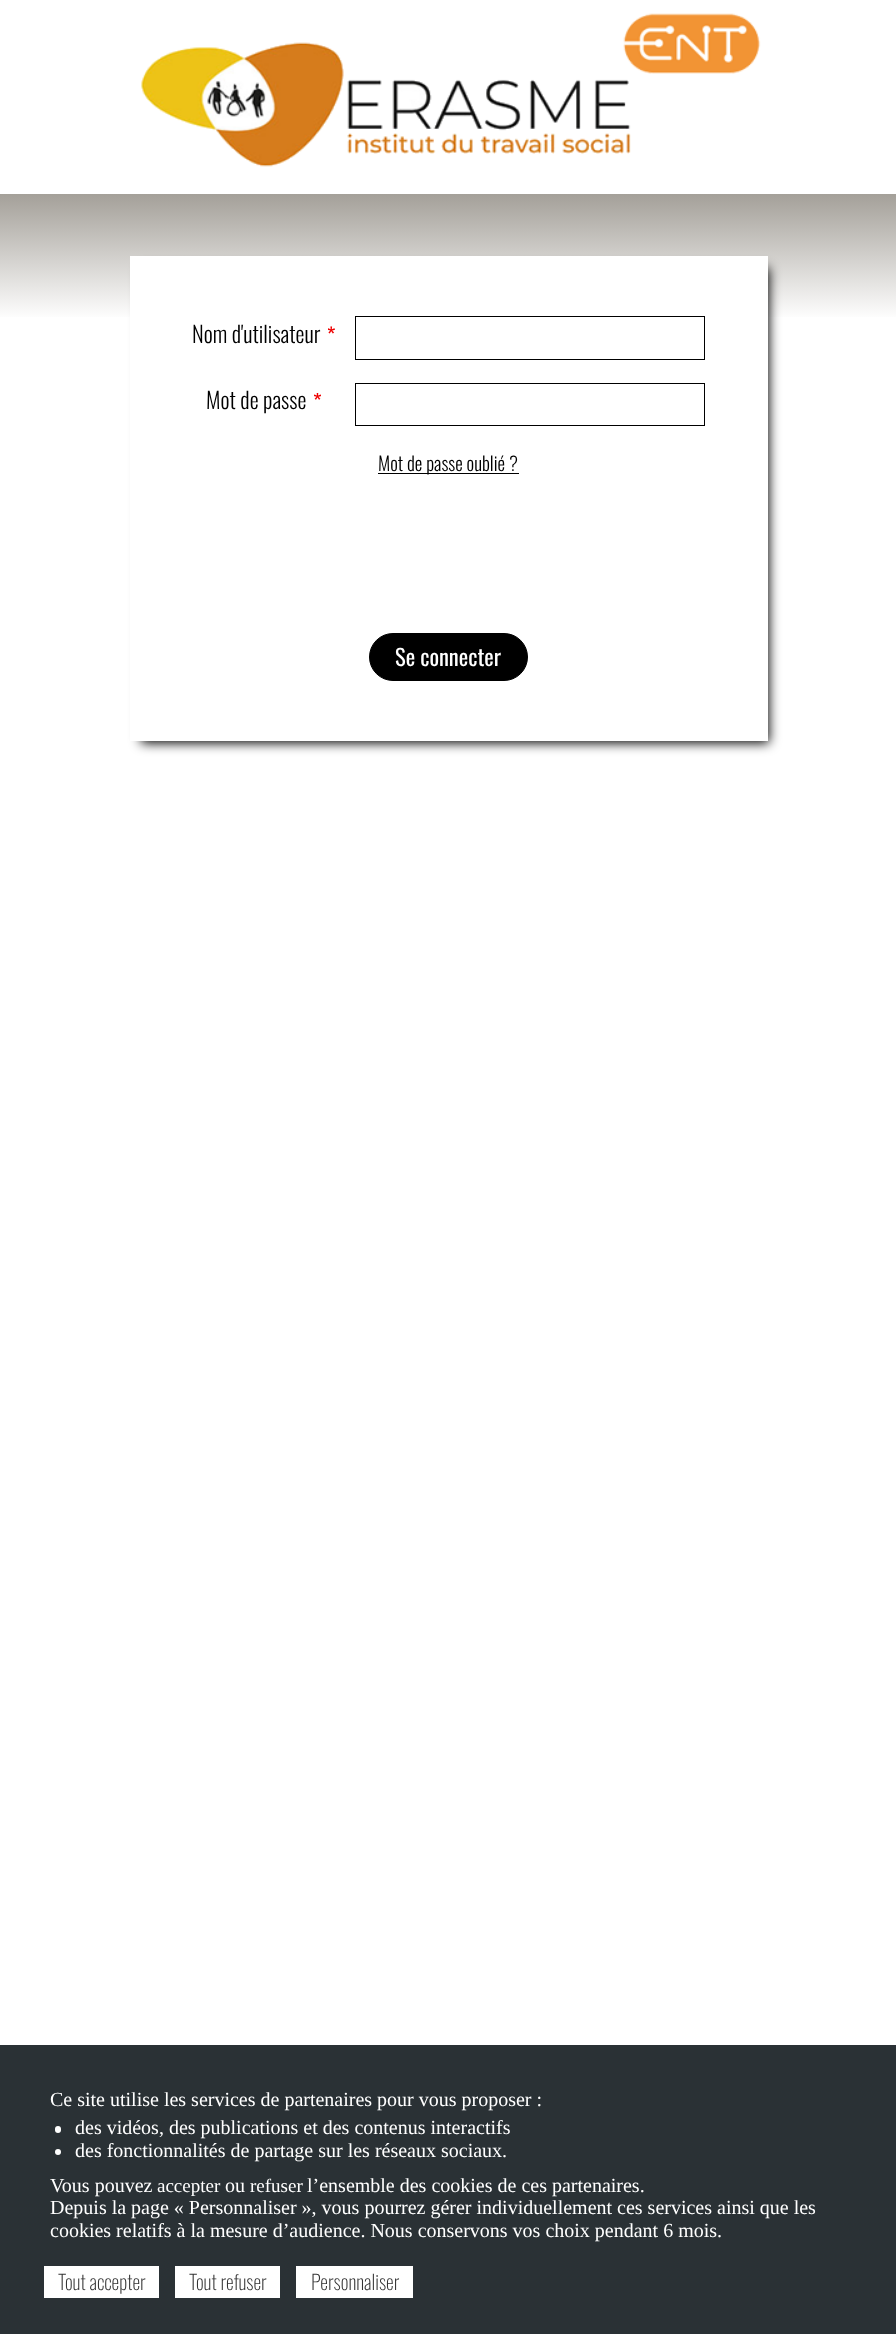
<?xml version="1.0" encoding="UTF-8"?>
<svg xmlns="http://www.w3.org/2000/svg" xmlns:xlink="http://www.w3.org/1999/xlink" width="896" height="2334">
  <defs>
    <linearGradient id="g1" gradientUnits="userSpaceOnUse" x1="448" y1="194" x2="448" y2="741"><stop offset="0" stop-color="#a4a099" /><stop offset="0.23" stop-color="#ffffff" /></linearGradient>
  </defs>
  <rect width="100%" height="100%" fill="#ffffff" />
  <image x="141" y="13" width="620" height="154" xlink:href="image1.png" />
  <rect y="194" width="896" height="123" fill="url(#g1)" />
  <rect x="141" y="268" width="628" height="475" fill="#000000" filter="blur(6px)" />
  <rect x="130" y="256" width="638" height="485" fill="#ffffff" />
  <image x="328" y="326" width="7" height="8" xlink:href="image2.png" />
  <rect x="355.5" y="316.5" width="349" height="43" fill="none" stroke="#000000" />
  <image x="314" y="393" width="7" height="7" xlink:href="image3.png" />
  <rect x="355.5" y="383.5" width="349" height="42" fill="none" stroke="#000000" />
  <rect x="378" y="473" width="141" height="1" fill="#000000" />
  <rect x="369.5" y="633.5" width="158" height="47" rx="23.5" fill="#000000" stroke="#000000" />
  <rect y="2045" width="896" height="289" fill="#2a3135" />
  <rect x="55" y="2126" width="6" height="7" rx="3" fill="#ffffff" />
  <circle cx="58" cy="2152" r="3" fill="#ffffff" />
  <rect x="44" y="2266" width="115" height="32" fill="#ffffff" />
  <rect x="175" y="2266" width="105" height="32" fill="#ffffff" />
  <rect x="296" y="2266" width="117" height="32" fill="#ffffff" />
  <text x="192" y="343" style="font-family: Oswald; font-size: 22.5px; font-weight: 300; fill: #000000">Nom d'utilisateur</text>
  <text x="206" y="409" style="font-family: Oswald; font-size: 22.5px; font-weight: 300; fill: #000000">Mot de passe</text>
  <text x="378" y="471" style="font-family: Oswald; font-size: 19px; font-weight: 300; fill: #000000">Mot de passe oublié ?</text>
  <text x="395" y="666" style="font-family: Oswald; font-size: 22.5px; fill: #ffffff">Se connecter</text>
  <text x="50" y="2106" style="font-family: Liberation Serif; font-size: 20px; fill: #ffffff">Ce site utilise les services de partenaires pour vous proposer :</text>
  <text x="75" y="2134" style="font-family: Liberation Serif; font-size: 20px; fill: #ffffff">des vidéos, des publications et des contenus interactifs</text>
  <text x="75" y="2157" style="font-family: Liberation Serif; font-size: 20px; fill: #ffffff">des fonctionnalités de partage sur les réseaux sociaux.</text>
  <text x="50" y="2192" style="font-family: Liberation Serif; font-size: 20px; fill: #ffffff">Vous pouvez</text>
  <text x="157" y="2192" style="font-family: Liberation Serif; font-size: 19px; fill: #ffffff">accepter</text>
  <text x="225" y="2192" style="font-family: Liberation Serif; font-size: 20px; fill: #ffffff">ou</text>
  <text x="250" y="2192" style="font-family: Liberation Serif; font-size: 19px; fill: #ffffff">refuser</text>
  <text x="307" y="2192" style="font-family: Liberation Serif; font-size: 20px; fill: #ffffff">l’ensemble des cookies de ces partenaires.</text>
  <text x="50" y="2214" style="font-family: Liberation Serif; font-size: 20px; fill: #ffffff">Depuis la page « Personnaliser », vous pourrez gérer individuellement ces services ainsi que les</text>
  <text x="50" y="2237" style="font-family: Liberation Serif; font-size: 20px; fill: #ffffff">cookies relatifs à la mesure d’audience. Nous conservons vos choix pendant 6 mois.</text>
  <text x="58" y="2290" style="font-family: Oswald; font-size: 20px; font-weight: 200; fill: #333333">Tout accepter</text>
  <text x="189" y="2290" style="font-family: Oswald; font-size: 20px; font-weight: 200; fill: #333333">Tout refuser</text>
  <text x="311" y="2290" style="font-family: Oswald; font-size: 20px; font-weight: 200; fill: #333333">Personnaliser</text>
</svg>
